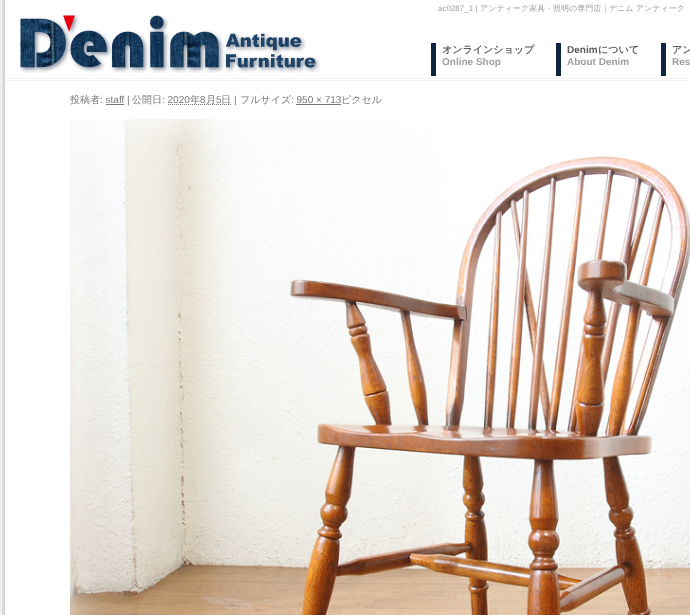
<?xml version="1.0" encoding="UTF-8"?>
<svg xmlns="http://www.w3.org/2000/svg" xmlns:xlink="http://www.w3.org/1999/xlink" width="690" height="615">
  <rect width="100%" height="100%" fill="#f1f1f1" />
  <image x="1" y="0" width="689" height="615" xlink:href="image1.png" />
  <rect x="5" y="80" width="685" height="1" fill="#f2f2f2" />
  <rect x="5" y="78" width="685" height="1" fill="#f2f2f2" />
  <image x="20" y="15" width="301" height="58" xlink:href="image2.png" />
  <rect x="431" y="43" width="5" height="33" fill="#10253f" />
  <rect x="556" y="43" width="5" height="33" fill="#10253f" />
  <rect x="661" y="43" width="5" height="33" fill="#10253f" />
  <path d="M 168 104.5 h 63.5" fill="none" stroke="#777777" stroke-dasharray="1 1" />
  <rect x="106" y="104" width="18" height="1" fill="#777777" />
  <rect x="296" y="104" width="45" height="1" fill="#777777" />
  <image x="70" y="119" width="620" height="496" xlink:href="image3.png" />
  <text x="438" y="11" style="font-family: Liberation Sans; font-size: 8px; fill: #9f9f9f">ac0287_1 |</text>
  <text x="480" y="11" style="font-family: WenQuanYi Zen Hei; font-size: 8px; font-weight: 500; fill: #9f9f9f">アンティーク家具・照明の専門店｜デニム アンティーク</text>
  <text x="442" y="53" style="font-family: WenQuanYi Zen Hei; font-size: 10px; font-weight: bold; fill: #595959">オンラインショップ</text>
  <text x="442" y="65" style="font-family: Liberation Sans; font-size: 10px; font-weight: bold; fill: #9f9f9f">Online Shop</text>
  <text x="567" y="53" style="font-family: Liberation Sans; font-size: 10px; font-weight: bold; fill: #595959">Denim</text>
  <text x="598" y="53" style="font-family: WenQuanYi Zen Hei; font-size: 10px; font-weight: bold; fill: #595959">について</text>
  <text x="567" y="65" style="font-family: Liberation Sans; font-size: 10px; font-weight: bold; fill: #9f9f9f">About Denim</text>
  <text x="672" y="53" style="font-family: WenQuanYi Zen Hei; font-size: 10px; font-weight: bold; fill: #595959">アン</text>
  <text x="672" y="65" style="font-family: Liberation Sans; font-size: 10px; font-weight: bold; fill: #9f9f9f">Res</text>
  <text x="70" y="103" style="font-family: WenQuanYi Zen Hei; font-size: 10px; font-weight: 500; fill: #777777">投稿者</text>
  <text x="100" y="103" style="font-family: Liberation Sans; font-size: 10px; fill: #777777">: staff |</text>
  <text x="132" y="103" style="font-family: WenQuanYi Zen Hei; font-size: 10px; font-weight: 500; fill: #777777">公開日</text>
  <text x="162" y="103" style="font-family: Liberation Sans; font-size: 10px; fill: #777777">: 2020</text>
  <text x="190" y="103" style="font-family: WenQuanYi Zen Hei; font-size: 10px; font-weight: 500; fill: #777777">年</text>
  <text x="200" y="103" style="font-family: Liberation Sans; font-size: 10px; fill: #777777">8</text>
  <text x="206" y="103" style="font-family: WenQuanYi Zen Hei; font-size: 10px; font-weight: 500; fill: #777777">月</text>
  <text x="216" y="103" style="font-family: Liberation Sans; font-size: 10px; fill: #777777">5</text>
  <text x="221" y="103" style="font-family: WenQuanYi Zen Hei; font-size: 10px; font-weight: 500; fill: #777777">日</text>
  <text x="234" y="103" style="font-family: Liberation Sans; font-size: 10px; fill: #777777">|</text>
  <text x="240" y="103" style="font-family: WenQuanYi Zen Hei; font-size: 10px; font-weight: 500; fill: #777777">フルサイズ</text>
  <text x="291" y="103" style="font-family: Liberation Sans; font-size: 10px; fill: #777777">: 950 × 713</text>
  <text x="341" y="103" style="font-family: WenQuanYi Zen Hei; font-size: 10px; font-weight: 500; fill: #777777">ピクセル</text>
</svg>
